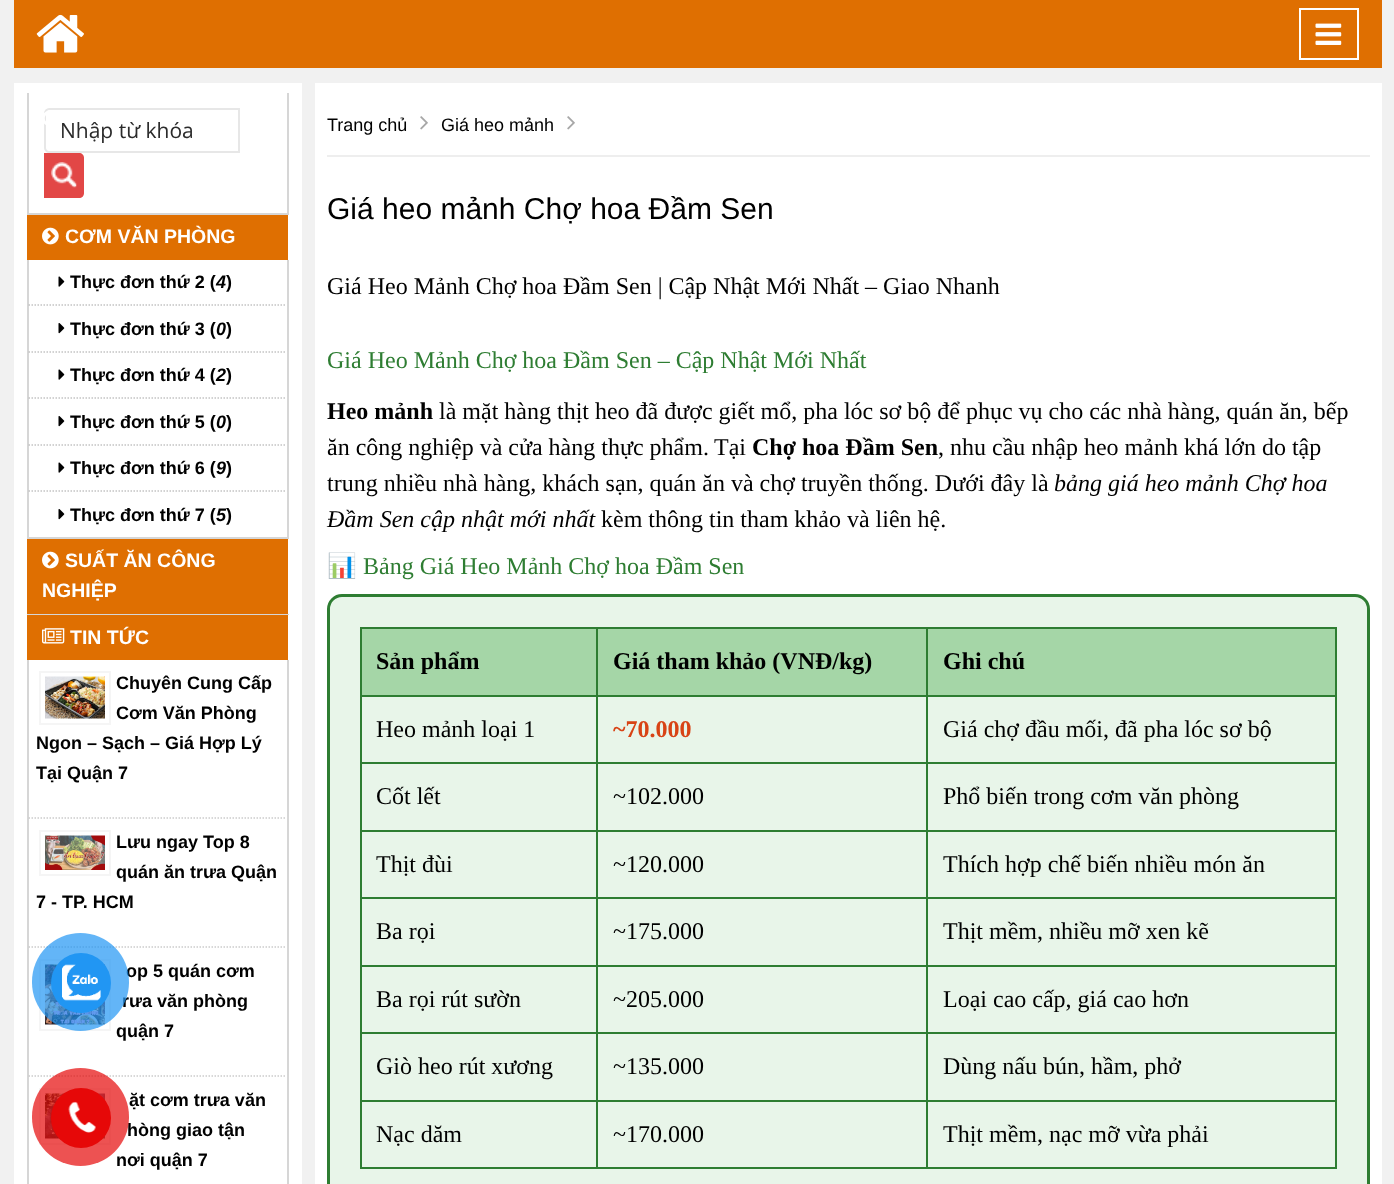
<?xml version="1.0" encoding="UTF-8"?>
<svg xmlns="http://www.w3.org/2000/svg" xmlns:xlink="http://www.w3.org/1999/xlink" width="1394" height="1184">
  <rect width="100%" height="100%" fill="#f1f1f1" />
  <rect x="14" width="1368" height="68" fill="#df6f01" />
  <image x="36" y="14" width="48" height="39" xlink:href="image1.png" />
  <rect x="1300" y="9" width="58" height="50" fill="none" stroke="#ffffff" stroke-width="2" />
  <image x="1315" y="23" width="27" height="22" xlink:href="image2.png" />
  <rect x="14" y="83" width="288" height="538" fill="#ffffff" />
  <path d="M 49 109 h 190 v 43 h -190 c -2 0 -4 -2 -4 -4 v -35 c 0 -2 2 -4 4 -4 z" fill="none" stroke="#e7e7e7" stroke-width="2" />
  <image x="44" y="111" width="3" height="14" xlink:href="image3.png" />
  <rect x="287" y="93" width="2" height="122" fill="#d6d6d6" />
  <rect x="27" y="213" width="261" height="2" fill="#d6d6d6" />
  <rect x="27" y="93" width="2" height="122" fill="#d6d6d6" />
  <path d="M 44 153 h 35 c 3 0 5 2 5 5 v 35 c 0 3 -2 5 -5 5 h -35 z" fill="#e24746" />
  <image x="51" y="162" width="26" height="26" xlink:href="image4.png" />
  <rect x="27" y="215" width="261" height="45" fill="#df6f01" />
  <image x="42" y="227" width="17" height="18" xlink:href="image5.png" />
  <rect x="287" y="260" width="2" height="279" fill="#d6d6d6" />
  <rect x="27" y="537" width="261" height="2" fill="#d6d6d6" />
  <rect x="27" y="260" width="2" height="279" fill="#d6d6d6" />
  <path d="M 28.5 305 h 258" fill="none" stroke="#c3c3c3" stroke-width="1.5" stroke-dasharray="1.5 1.5" />
  <image x="58" y="276" width="7" height="11" xlink:href="image6.png" />
  <path d="M 28.5 352 h 258" fill="none" stroke="#c3c3c3" stroke-width="1.5" stroke-dasharray="1.5 1.5" />
  <image x="58" y="323" width="7" height="11" xlink:href="image7.png" />
  <path d="M 28.5 398 h 258" fill="none" stroke="#c3c3c3" stroke-width="1.5" stroke-dasharray="1.5 1.5" />
  <image x="58" y="369" width="7" height="11" xlink:href="image6.png" />
  <path d="M 28.5 445 h 258" fill="none" stroke="#c3c3c3" stroke-width="1.5" stroke-dasharray="1.5 1.5" />
  <image x="58" y="416" width="7" height="11" xlink:href="image7.png" />
  <path d="M 28.5 491 h 258" fill="none" stroke="#c3c3c3" stroke-width="1.5" stroke-dasharray="1.5 1.5" />
  <image x="58" y="462" width="7" height="11" xlink:href="image6.png" />
  <image x="58" y="509" width="7" height="11" xlink:href="image7.png" />
  <rect x="27" y="539" width="261" height="75" fill="#df6f01" />
  <image x="42" y="551" width="17" height="18" xlink:href="image5.png" />
  <rect x="27" y="614" width="262" height="1" fill="#d6d6d6" />
  <rect x="14" y="615" width="288" height="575" rx="6" fill="#ffffff" />
  <rect x="27" y="615" width="261" height="45" fill="#df6f01" />
  <image x="42" y="628" width="23" height="16" xlink:href="image8.png" />
  <rect x="287" y="660" width="2" height="524" fill="#d6d6d6" />
  <rect x="27" y="660" width="2" height="524" fill="#d6d6d6" />
  <path d="M 28.5 818 h 258" fill="none" stroke="#cccccc" stroke-width="1.5" stroke-dasharray="1.5 1.5" />
  <rect x="40" y="672" width="70" height="52" fill="none" stroke="#f5f5f5" stroke-width="2" />
  <image x="45" y="676" width="60" height="43" xlink:href="image9.png" />
  <path d="M 28.5 947 h 258" fill="none" stroke="#cccccc" stroke-width="1.5" stroke-dasharray="1.5 1.5" />
  <rect x="40" y="831" width="70" height="44" fill="none" stroke="#f5f5f5" stroke-width="2" />
  <image x="45" y="835" width="60" height="35" xlink:href="image10.png" />
  <path d="M 28.5 1076 h 258" fill="none" stroke="#cccccc" stroke-width="1.5" stroke-dasharray="1.5 1.5" />
  <rect x="40" y="960" width="70" height="70" fill="none" stroke="#f5f5f5" stroke-width="2" />
  <image x="45" y="964" width="60" height="61" xlink:href="image11.png" />
  <rect x="40" y="1089" width="70" height="55" fill="none" stroke="#f5f5f5" stroke-width="2" />
  <image x="45" y="1093" width="60" height="46" xlink:href="image12.png" />
  <rect x="315" y="83" width="1067" height="1101" fill="#ffffff" />
  <rect x="327" y="155" width="1043" height="2" fill="#eeeeee" />
  <image x="420" y="116" width="8" height="14" xlink:href="image13.png" />
  <image x="567" y="116" width="8" height="14" xlink:href="image13.png" />
  <rect x="328.5" y="595.5" width="1040" height="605" rx="13.5" fill="#e8f5e9" stroke="#2e7d32" stroke-width="3" />
  <rect x="362" y="629" width="973" height="66" fill="#a5d6a7" />
  <rect x="926" y="627" width="411" height="2" fill="#2e7d32" />
  <rect x="926" y="695" width="411" height="2" fill="#2e7d32" />
  <rect x="926" y="762" width="411" height="2" fill="#2e7d32" />
  <rect x="926" y="830" width="411" height="2" fill="#2e7d32" />
  <rect x="926" y="897" width="411" height="2" fill="#2e7d32" />
  <rect x="926" y="965" width="411" height="2" fill="#2e7d32" />
  <rect x="926" y="1032" width="411" height="2" fill="#2e7d32" />
  <rect x="926" y="1100" width="411" height="2" fill="#2e7d32" />
  <rect x="1335" y="1100" width="2" height="69" fill="#2e7d32" />
  <rect x="926" y="1167" width="411" height="2" fill="#2e7d32" />
  <rect x="926" y="1100" width="2" height="69" fill="#2e7d32" />
  <rect x="596" y="1100" width="331" height="2" fill="#2e7d32" />
  <rect x="926" y="1032" width="2" height="69" fill="#2e7d32" />
  <rect x="596" y="1032" width="331" height="2" fill="#2e7d32" />
  <rect x="926" y="965" width="2" height="69" fill="#2e7d32" />
  <rect x="596" y="965" width="331" height="2" fill="#2e7d32" />
  <rect x="926" y="897" width="2" height="69" fill="#2e7d32" />
  <rect x="596" y="897" width="331" height="2" fill="#2e7d32" />
  <rect x="926" y="830" width="2" height="69" fill="#2e7d32" />
  <rect x="596" y="830" width="331" height="2" fill="#2e7d32" />
  <rect x="926" y="762" width="2" height="69" fill="#2e7d32" />
  <rect x="596" y="762" width="331" height="2" fill="#2e7d32" />
  <rect x="926" y="695" width="2" height="69" fill="#2e7d32" />
  <rect x="596" y="695" width="331" height="2" fill="#2e7d32" />
  <rect x="926" y="627" width="2" height="69" fill="#2e7d32" />
  <rect x="596" y="627" width="331" height="2" fill="#2e7d32" />
  <rect x="596" y="1167" width="331" height="2" fill="#2e7d32" />
  <rect x="596" y="1100" width="2" height="69" fill="#2e7d32" />
  <rect x="360" y="1100" width="237" height="2" fill="#2e7d32" />
  <rect x="596" y="1032" width="2" height="69" fill="#2e7d32" />
  <rect x="360" y="1032" width="237" height="2" fill="#2e7d32" />
  <rect x="596" y="965" width="2" height="69" fill="#2e7d32" />
  <rect x="360" y="965" width="237" height="2" fill="#2e7d32" />
  <rect x="596" y="897" width="2" height="69" fill="#2e7d32" />
  <rect x="360" y="897" width="237" height="2" fill="#2e7d32" />
  <rect x="596" y="830" width="2" height="69" fill="#2e7d32" />
  <rect x="360" y="830" width="237" height="2" fill="#2e7d32" />
  <rect x="596" y="762" width="2" height="69" fill="#2e7d32" />
  <rect x="360" y="762" width="237" height="2" fill="#2e7d32" />
  <rect x="596" y="695" width="2" height="69" fill="#2e7d32" />
  <rect x="360" y="695" width="237" height="2" fill="#2e7d32" />
  <rect x="596" y="627" width="2" height="69" fill="#2e7d32" />
  <rect x="360" y="627" width="237" height="2" fill="#2e7d32" />
  <rect x="360" y="1167" width="237" height="2" fill="#2e7d32" />
  <rect x="360" y="1100" width="2" height="69" fill="#2e7d32" />
  <rect x="360" y="1032" width="2" height="69" fill="#2e7d32" />
  <rect x="360" y="965" width="2" height="69" fill="#2e7d32" />
  <rect x="360" y="897" width="2" height="69" fill="#2e7d32" />
  <rect x="360" y="830" width="2" height="69" fill="#2e7d32" />
  <rect x="360" y="762" width="2" height="69" fill="#2e7d32" />
  <rect x="360" y="695" width="2" height="69" fill="#2e7d32" />
  <rect x="360" y="627" width="2" height="69" fill="#2e7d32" />
  <rect x="1335" y="1032" width="2" height="69" fill="#2e7d32" />
  <rect x="1335" y="965" width="2" height="69" fill="#2e7d32" />
  <rect x="1335" y="897" width="2" height="69" fill="#2e7d32" />
  <rect x="1335" y="830" width="2" height="69" fill="#2e7d32" />
  <rect x="1335" y="762" width="2" height="69" fill="#2e7d32" />
  <rect x="1335" y="695" width="2" height="69" fill="#2e7d32" />
  <rect x="1335" y="627" width="2" height="69" fill="#2e7d32" />
  <text x="60" y="138" style="font-family: Open Sans; font-size: 21px; fill: #2b2b2b">Nhập từ khóa</text>
  <text x="65" y="243" style="font-family: Liberation Sans; font-size: 19.5px; font-weight: bold; fill: #ffffff">CƠM VĂN PHÒNG</text>
  <text x="70" y="288" style="font-family: Liberation Sans; font-size: 18px; font-weight: bold; fill: #000000">Thực đơn thứ 2 (</text>
  <text x="216" y="288" style="font-family: Liberation Sans; font-size: 18px; font-weight: bold; font-style: italic; fill: #000000">4</text>
  <text x="226" y="288" style="font-family: Liberation Sans; font-size: 18px; font-weight: bold; fill: #000000">)</text>
  <text x="70" y="335" style="font-family: Liberation Sans; font-size: 18px; font-weight: bold; fill: #000000">Thực đơn thứ 3 (</text>
  <text x="216" y="335" style="font-family: Liberation Sans; font-size: 18px; font-weight: bold; font-style: italic; fill: #000000">0</text>
  <text x="226" y="335" style="font-family: Liberation Sans; font-size: 18px; font-weight: bold; fill: #000000">)</text>
  <text x="70" y="381" style="font-family: Liberation Sans; font-size: 18px; font-weight: bold; fill: #000000">Thực đơn thứ 4 (</text>
  <text x="216" y="381" style="font-family: Liberation Sans; font-size: 18px; font-weight: bold; font-style: italic; fill: #000000">2</text>
  <text x="226" y="381" style="font-family: Liberation Sans; font-size: 18px; font-weight: bold; fill: #000000">)</text>
  <text x="70" y="428" style="font-family: Liberation Sans; font-size: 18px; font-weight: bold; fill: #000000">Thực đơn thứ 5 (</text>
  <text x="216" y="428" style="font-family: Liberation Sans; font-size: 18px; font-weight: bold; font-style: italic; fill: #000000">0</text>
  <text x="226" y="428" style="font-family: Liberation Sans; font-size: 18px; font-weight: bold; fill: #000000">)</text>
  <text x="70" y="474" style="font-family: Liberation Sans; font-size: 18px; font-weight: bold; fill: #000000">Thực đơn thứ 6 (</text>
  <text x="216" y="474" style="font-family: Liberation Sans; font-size: 18px; font-weight: bold; font-style: italic; fill: #000000">9</text>
  <text x="226" y="474" style="font-family: Liberation Sans; font-size: 18px; font-weight: bold; fill: #000000">)</text>
  <text x="70" y="521" style="font-family: Liberation Sans; font-size: 18px; font-weight: bold; fill: #000000">Thực đơn thứ 7 (</text>
  <text x="216" y="521" style="font-family: Liberation Sans; font-size: 18px; font-weight: bold; font-style: italic; fill: #000000">5</text>
  <text x="226" y="521" style="font-family: Liberation Sans; font-size: 18px; font-weight: bold; fill: #000000">)</text>
  <text x="65" y="567" style="font-family: Liberation Sans; font-size: 19.5px; font-weight: bold; fill: #ffffff">SUẤT ĂN CÔNG</text>
  <text x="42" y="597" style="font-family: Liberation Sans; font-size: 19.5px; font-weight: bold; fill: #ffffff">NGHIỆP</text>
  <text x="70" y="644" style="font-family: Liberation Sans; font-size: 19.5px; font-weight: bold; fill: #ffffff">TIN TỨC</text>
  <text x="116" y="689" style="font-family: Liberation Sans; font-size: 18px; font-weight: bold; fill: #000000">Chuyên Cung Cấp</text>
  <text x="116" y="719" style="font-family: Liberation Sans; font-size: 18px; font-weight: bold; fill: #000000">Cơm Văn Phòng</text>
  <text x="36" y="749" style="font-family: Liberation Sans; font-size: 18px; font-weight: bold; fill: #000000">Ngon – Sạch – Giá Hợp Lý</text>
  <text x="36" y="779" style="font-family: Liberation Sans; font-size: 18px; font-weight: bold; fill: #000000">Tại Quận 7</text>
  <text x="116" y="848" style="font-family: Liberation Sans; font-size: 18px; font-weight: bold; fill: #000000">Lưu ngay Top 8</text>
  <text x="116" y="878" style="font-family: Liberation Sans; font-size: 18px; font-weight: bold; fill: #000000">quán ăn trưa Quận</text>
  <text x="36" y="908" style="font-family: Liberation Sans; font-size: 18px; font-weight: bold; fill: #000000">7 - TP. HCM</text>
  <text x="126" y="977" style="font-family: Liberation Sans; font-size: 18px; font-weight: bold; fill: #000000">op 5 quán cơm</text>
  <text x="122" y="1007" style="font-family: Liberation Sans; font-size: 18px; font-weight: bold; fill: #000000">rưa văn phòng</text>
  <text x="116" y="1037" style="font-family: Liberation Sans; font-size: 18px; font-weight: bold; fill: #000000">quận 7</text>
  <text x="129" y="1106" style="font-family: Liberation Sans; font-size: 18px; font-weight: bold; fill: #000000">ặt cơm trưa văn</text>
  <text x="127" y="1136" style="font-family: Liberation Sans; font-size: 18px; font-weight: bold; fill: #000000">hòng giao tận</text>
  <text x="116" y="1166" style="font-family: Liberation Sans; font-size: 18px; font-weight: bold; fill: #000000">nơi quận 7</text>
  <text x="327" y="131" style="font-family: Liberation Sans; font-size: 18px; fill: #000000">Trang chủ</text>
  <text x="441" y="131" style="font-family: Liberation Sans; font-size: 18px; fill: #000000">Giá heo mảnh</text>
  <text x="327" y="219" style="font-family: Liberation Sans; font-size: 30px; fill: #000000">Giá heo mảnh Chợ hoa Đầm Sen</text>
  <text x="327" y="294" style="font-family: Liberation Serif; font-size: 24px; fill: #000000">Giá Heo Mảnh Chợ hoa Đầm Sen | Cập Nhật Mới Nhất – Giao Nhanh</text>
  <text x="327" y="368" style="font-family: Liberation Serif; font-size: 24px; fill: #2e7d32">Giá Heo Mảnh Chợ hoa Đầm Sen – Cập Nhật Mới Nhất</text>
  <text x="327" y="419" style="font-family: Liberation Serif; font-size: 24px; font-weight: bold; fill: #000000">Heo mảnh</text>
  <text x="439" y="419" style="font-family: Liberation Serif; font-size: 24px; fill: #000000">là mặt hàng thịt heo đã được giết mổ, pha lóc sơ bộ để phục vụ cho các nhà hàng, quán ăn, bếp</text>
  <text x="327" y="455" style="font-family: Liberation Serif; font-size: 24px; fill: #000000">ăn công nghiệp và cửa hàng thực phẩm.</text>
  <text x="714" y="455" style="font-family: Liberation Serif; font-size: 24px; fill: #000000">Tại</text>
  <text x="752" y="455" style="font-family: Liberation Serif; font-size: 24px; font-weight: bold; fill: #000000">Chợ hoa Đầm Sen</text>
  <text x="938" y="455" style="font-family: Liberation Serif; font-size: 24px; fill: #000000">, nhu cầu nhập heo mảnh khá lớn do tập</text>
  <text x="327" y="491" style="font-family: Liberation Serif; font-size: 24px; fill: #000000">trung nhiều nhà hàng, khách sạn, quán ăn và chợ truyền thống. Dưới đây là</text>
  <text x="1054" y="491" style="font-family: Liberation Serif; font-size: 24px; font-style: italic; fill: #000000">bảng giá heo mảnh Chợ hoa</text>
  <text x="327" y="527" style="font-family: Liberation Serif; font-size: 24px; font-style: italic; fill: #000000">Đầm Sen cập nhật mới nhất</text>
  <text x="601" y="527" style="font-family: Liberation Serif; font-size: 24px; fill: #000000">kèm thông tin tham khảo và liên hệ.</text>
  <text x="327" y="574" style="font-family: Noto Color Emoji; font-size: 24px; fill: #2e7d32">📊</text>
  <text x="363" y="574" style="font-family: Liberation Serif; font-size: 24px; fill: #2e7d32">Bảng Giá Heo Mảnh Chợ hoa Đầm Sen</text>
  <text x="376" y="669" style="font-family: Liberation Serif; font-size: 24px; font-weight: bold; fill: #000000">Sản phẩm</text>
  <text x="613" y="669" style="font-family: Liberation Serif; font-size: 24px; font-weight: bold; fill: #000000">Giá tham khảo (VNĐ/kg)</text>
  <text x="943" y="669" style="font-family: Liberation Serif; font-size: 24px; font-weight: bold; fill: #000000">Ghi chú</text>
  <text x="376" y="737" style="font-family: Liberation Serif; font-size: 24px; fill: #000000">Heo mảnh loại 1</text>
  <text x="613" y="737" style="font-family: Liberation Serif; font-size: 24px; font-weight: bold; fill: #d84315">~70.000</text>
  <text x="943" y="737" style="font-family: Liberation Serif; font-size: 24px; fill: #000000">Giá chợ đầu mối, đã pha lóc sơ bộ</text>
  <text x="376" y="804" style="font-family: Liberation Serif; font-size: 24px; fill: #000000">Cốt lết</text>
  <text x="613" y="804" style="font-family: Liberation Serif; font-size: 24px; fill: #000000">~102.000</text>
  <text x="943" y="804" style="font-family: Liberation Serif; font-size: 24px; fill: #000000">Phổ biến trong cơm văn phòng</text>
  <text x="376" y="872" style="font-family: Liberation Serif; font-size: 24px; fill: #000000">Thịt đùi</text>
  <text x="613" y="872" style="font-family: Liberation Serif; font-size: 24px; fill: #000000">~120.000</text>
  <text x="943" y="872" style="font-family: Liberation Serif; font-size: 24px; fill: #000000">Thích hợp chế biến nhiều món ăn</text>
  <text x="376" y="939" style="font-family: Liberation Serif; font-size: 24px; fill: #000000">Ba rọi</text>
  <text x="613" y="939" style="font-family: Liberation Serif; font-size: 24px; fill: #000000">~175.000</text>
  <text x="943" y="939" style="font-family: Liberation Serif; font-size: 24px; fill: #000000">Thịt mềm, nhiều mỡ xen kẽ</text>
  <text x="376" y="1007" style="font-family: Liberation Serif; font-size: 24px; fill: #000000">Ba rọi rút sườn</text>
  <text x="613" y="1007" style="font-family: Liberation Serif; font-size: 24px; fill: #000000">~205.000</text>
  <text x="943" y="1007" style="font-family: Liberation Serif; font-size: 24px; fill: #000000">Loại cao cấp, giá cao hơn</text>
  <text x="376" y="1074" style="font-family: Liberation Serif; font-size: 24px; fill: #000000">Giò heo rút xương</text>
  <text x="613" y="1074" style="font-family: Liberation Serif; font-size: 24px; fill: #000000">~135.000</text>
  <text x="943" y="1074" style="font-family: Liberation Serif; font-size: 24px; fill: #000000">Dùng nấu bún, hầm, phở</text>
  <text x="376" y="1142" style="font-family: Liberation Serif; font-size: 24px; fill: #000000">Nạc dăm</text>
  <text x="613" y="1142" style="font-family: Liberation Serif; font-size: 24px; fill: #000000">~170.000</text>
  <text x="943" y="1142" style="font-family: Liberation Serif; font-size: 24px; fill: #000000">Thịt mềm, nạc mỡ vừa phải</text>
  <rect x="32" y="933" width="97" height="98" rx="48.5" fill="#2196f3" fill-opacity="0.7" />
  <circle cx="81" cy="983" r="30" fill="#2196f3" />
  <image x="62" y="964" width="39" height="37" xlink:href="image14.png" />
  <rect x="32" y="1068" width="97" height="98" rx="48.5" fill="#e60808" fill-opacity="0.7" />
  <circle cx="81" cy="1118" r="30" fill="#e60808" />
  <image x="68" y="1101" width="28" height="32" xlink:href="image15.png" />
</svg>
